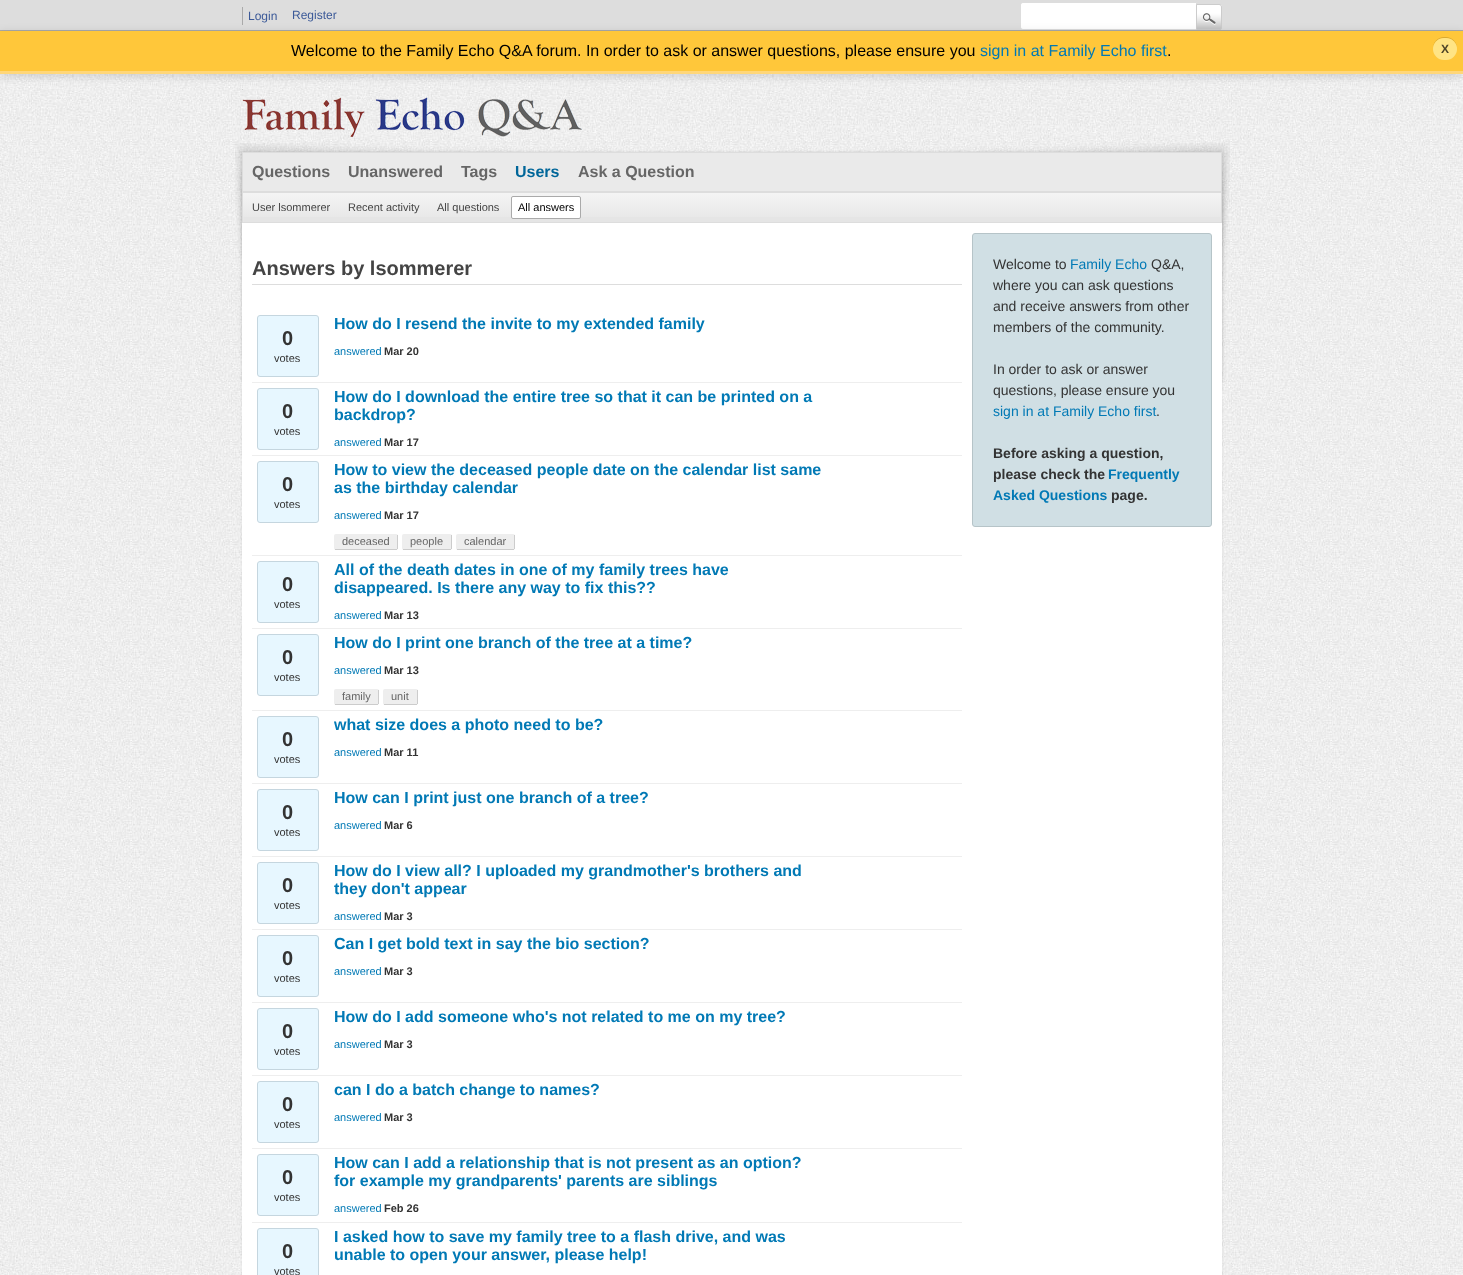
<?xml version="1.0" encoding="UTF-8"?>
<svg xmlns="http://www.w3.org/2000/svg" xmlns:xlink="http://www.w3.org/1999/xlink" width="1463" height="1275">
  <defs>
    <linearGradient id="g1" gradientUnits="userSpaceOnUse" x1="732" y1="193" x2="732" y2="222"><stop offset="0" stop-color="#f4f4f4" /><stop offset="1" stop-color="#e6e6e6" /></linearGradient>
  </defs>
  <rect width="100%" height="100%" fill="#ffffff" />
  <image x="0" y="74" width="1463" height="1201" xlink:href="image1.png" />
  <rect width="1463" height="30" fill="#dddddd" />
  <rect y="30" width="1463" height="1" fill="#aaaaaa" />
  <rect x="242" y="7" width="1" height="18" fill="#aaaaaa" />
  <path d="M 1023 2.5 h 173.5 v 27 h -173.5 c -1.5 0 -2.5 -1 -2.5 -2.5 v -22 c 0 -1.5 1 -2.5 2.5 -2.5 z" fill="#ffffff" stroke="#dddddd" />
  <image x="1197" y="5" width="25" height="25" xlink:href="image2.png" />
  <path d="M 1196.5 4.5 h 22.5 c 1.5 0 2.5 1 2.5 2.5 v 20 c 0 1.5 -1 2.5 -2.5 2.5 h -22.5 z" fill="none" stroke="#cccccc" />
  <image x="242" y="89" width="340" height="48" xlink:href="image3.png" />
  <rect y="33" width="1463" height="43" fill="#000000" fill-opacity="0.15" filter="blur(5px)" />
  <rect y="31" width="1463" height="40" fill="#ffc73a" />
  <rect y="71" width="1463" height="3" fill="#ffd77a" />
  <path d="M 1444 37 c -6 0 -11.5 5.5 -11 11.5 c 0.5 -14 23.5 -14 24 0 c 0.5 -6 -5 -11.5 -11 -11.5 z" fill="#d9a931" />
  <rect x="1433" y="38" width="24" height="22" rx="11" fill="#ffe484" />
  <image x="235" y="143" width="995" height="239" xlink:href="image4.png" />
  <rect x="242" y="152" width="980" height="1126" fill="#000000" fill-opacity="0.1" filter="blur(1px)" />
  <rect x="242" y="223" width="980" height="1052" fill="#ffffff" />
  <rect x="242.5" y="152.5" width="979" height="39" fill="#eaeaea" stroke="#dddddd" />
  <rect x="243" y="193" width="978" height="24" fill="url(#g1)" />
  <rect x="242.5" y="192.5" width="979" height="30" fill="none" stroke="#dddddd" />
  <rect x="511.5" y="196.5" width="69" height="22" rx="1.5" fill="#ffffff" stroke="#aaaaaa" />
  <rect x="252" y="284" width="710" height="1" fill="#dddddd" />
  <rect x="252" y="382" width="710" height="1" fill="#eeeeee" />
  <rect x="257.5" y="315.5" width="61" height="61" rx="2.5" fill="#e7f7ff" stroke="#c5d6df" />
  <rect x="252" y="455" width="710" height="1" fill="#eeeeee" />
  <rect x="257.5" y="388.5" width="61" height="61" rx="2.5" fill="#e7f7ff" stroke="#c5d6df" />
  <rect x="252" y="555" width="710" height="1" fill="#eeeeee" />
  <rect x="257.5" y="461.5" width="61" height="61" rx="2.5" fill="#e7f7ff" stroke="#c5d6df" />
  <rect x="334" y="534" width="64" height="16" rx="2" fill="#eeeeee" />
  <rect x="397" y="535" width="1" height="14" fill="#cccccc" />
  <rect x="335" y="549" width="62" height="1" fill="#cccccc" />
  <rect x="402" y="534" width="50" height="16" rx="2" fill="#eeeeee" />
  <rect x="451" y="535" width="1" height="14" fill="#cccccc" />
  <rect x="403" y="549" width="48" height="1" fill="#cccccc" />
  <rect x="456" y="534" width="59" height="16" rx="2" fill="#eeeeee" />
  <rect x="514" y="535" width="1" height="14" fill="#cccccc" />
  <rect x="457" y="549" width="57" height="1" fill="#cccccc" />
  <rect x="252" y="628" width="710" height="1" fill="#eeeeee" />
  <rect x="257.5" y="561.5" width="61" height="61" rx="2.5" fill="#e7f7ff" stroke="#c5d6df" />
  <rect x="252" y="710" width="710" height="1" fill="#eeeeee" />
  <rect x="257.5" y="634.5" width="61" height="61" rx="2.5" fill="#e7f7ff" stroke="#c5d6df" />
  <rect x="334" y="689" width="45" height="16" rx="2" fill="#eeeeee" />
  <rect x="378" y="690" width="1" height="14" fill="#cccccc" />
  <rect x="335" y="704" width="43" height="1" fill="#cccccc" />
  <rect x="383" y="689" width="35" height="16" rx="2" fill="#eeeeee" />
  <rect x="417" y="690" width="1" height="14" fill="#cccccc" />
  <rect x="384" y="704" width="33" height="1" fill="#cccccc" />
  <rect x="252" y="783" width="710" height="1" fill="#eeeeee" />
  <rect x="257.5" y="716.5" width="61" height="61" rx="2.5" fill="#e7f7ff" stroke="#c5d6df" />
  <rect x="252" y="856" width="710" height="1" fill="#eeeeee" />
  <rect x="257.5" y="789.5" width="61" height="61" rx="2.5" fill="#e7f7ff" stroke="#c5d6df" />
  <rect x="252" y="929" width="710" height="1" fill="#eeeeee" />
  <rect x="257.5" y="862.5" width="61" height="61" rx="2.5" fill="#e7f7ff" stroke="#c5d6df" />
  <rect x="252" y="1002" width="710" height="1" fill="#eeeeee" />
  <rect x="257.5" y="935.5" width="61" height="61" rx="2.5" fill="#e7f7ff" stroke="#c5d6df" />
  <rect x="252" y="1075" width="710" height="1" fill="#eeeeee" />
  <rect x="257.5" y="1008.5" width="61" height="61" rx="2.5" fill="#e7f7ff" stroke="#c5d6df" />
  <rect x="252" y="1148" width="710" height="1" fill="#eeeeee" />
  <rect x="257.5" y="1081.5" width="61" height="61" rx="2.5" fill="#e7f7ff" stroke="#c5d6df" />
  <rect x="252" y="1222" width="710" height="1" fill="#eeeeee" />
  <rect x="257.5" y="1154.5" width="61" height="61" rx="2.5" fill="#e7f7ff" stroke="#c5d6df" />
  <rect x="257.5" y="1228.5" width="61" height="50" rx="2.5" fill="#e7f7ff" stroke="#c5d6df" />
  <rect x="972.5" y="233.5" width="239" height="293" rx="2.5" fill="#d0dfe4" stroke="#b6c4c8" />
  <text x="248" y="20" style="font-family: Liberation Sans; font-size: 12px; fill: #3b5998">Login</text>
  <text x="292" y="19" style="font-family: Liberation Sans; font-size: 12px; fill: #3b5998">Register</text>
  <text x="291" y="56" style="font-family: Liberation Sans; font-size: 16px; fill: #000000">Welcome to the Family Echo Q&amp;A forum. In order to ask or answer questions, please ensure you</text>
  <text x="980" y="56" style="font-family: Liberation Sans; font-size: 16px; fill: #0179b5">sign in at Family Echo first</text>
  <text x="1441" y="53" style="font-family: Liberation Sans; font-size: 12px; font-weight: bold; fill: #4d4428">X</text>
  <text x="1167" y="56" style="font-family: Liberation Sans; font-size: 16px; fill: #000000">.</text>
  <text x="252" y="177" style="font-family: Liberation Sans; font-size: 16px; font-weight: bold; fill: #666666">Questions</text>
  <text x="348" y="177" style="font-family: Liberation Sans; font-size: 16px; font-weight: bold; fill: #666666">Unanswered</text>
  <text x="461" y="177" style="font-family: Liberation Sans; font-size: 16px; font-weight: bold; fill: #666666">Tags</text>
  <text x="515" y="177" style="font-family: Liberation Sans; font-size: 16px; font-weight: bold; fill: #006699">Users</text>
  <text x="578" y="177" style="font-family: Liberation Sans; font-size: 16px; font-weight: bold; fill: #666666">Ask a Question</text>
  <text x="252" y="211" style="font-family: Liberation Sans; font-size: 11px; fill: #444444">User lsommerer</text>
  <text x="348" y="211" style="font-family: Liberation Sans; font-size: 11px; fill: #444444">Recent activity</text>
  <text x="437" y="211" style="font-family: Liberation Sans; font-size: 11px; fill: #444444">All questions</text>
  <text x="518" y="211" style="font-family: Liberation Sans; font-size: 11px; fill: #000000">All answers</text>
  <text x="252" y="275" style="font-family: Liberation Sans; font-size: 20px; font-weight: bold; fill: #444444">Answers by lsommerer</text>
  <text x="282" y="345" style="font-family: Liberation Sans; font-size: 20px; font-weight: bold; fill: #333333">0</text>
  <text x="274" y="362" style="font-family: Liberation Sans; font-size: 11px; fill: #333333">votes</text>
  <text x="334" y="329" style="font-family: Liberation Sans; font-size: 16px; font-weight: bold; fill: #0179b5">How do I resend the invite to my extended family</text>
  <text x="334" y="355" style="font-family: Liberation Sans; font-size: 11px; fill: #0179b5">answered</text>
  <text x="384" y="355" style="font-family: Liberation Sans; font-size: 11px; font-weight: bold; fill: #333333">Mar 20</text>
  <text x="282" y="418" style="font-family: Liberation Sans; font-size: 20px; font-weight: bold; fill: #333333">0</text>
  <text x="274" y="435" style="font-family: Liberation Sans; font-size: 11px; fill: #333333">votes</text>
  <text x="334" y="402" style="font-family: Liberation Sans; font-size: 16px; font-weight: bold; fill: #0179b5">How do I download the entire tree so that it can be printed on a</text>
  <text x="334" y="420" style="font-family: Liberation Sans; font-size: 16px; font-weight: bold; fill: #0179b5">backdrop?</text>
  <text x="334" y="446" style="font-family: Liberation Sans; font-size: 11px; fill: #0179b5">answered</text>
  <text x="384" y="446" style="font-family: Liberation Sans; font-size: 11px; font-weight: bold; fill: #333333">Mar 17</text>
  <text x="282" y="491" style="font-family: Liberation Sans; font-size: 20px; font-weight: bold; fill: #333333">0</text>
  <text x="274" y="508" style="font-family: Liberation Sans; font-size: 11px; fill: #333333">votes</text>
  <text x="334" y="475" style="font-family: Liberation Sans; font-size: 16px; font-weight: bold; fill: #0179b5">How to view the deceased people date on the calendar list same</text>
  <text x="334" y="493" style="font-family: Liberation Sans; font-size: 16px; font-weight: bold; fill: #0179b5">as the birthday calendar</text>
  <text x="334" y="519" style="font-family: Liberation Sans; font-size: 11px; fill: #0179b5">answered</text>
  <text x="384" y="519" style="font-family: Liberation Sans; font-size: 11px; font-weight: bold; fill: #333333">Mar 17</text>
  <text x="342" y="545" style="font-family: Liberation Sans; font-size: 11px; fill: #666666">deceased</text>
  <text x="410" y="545" style="font-family: Liberation Sans; font-size: 11px; fill: #666666">people</text>
  <text x="464" y="545" style="font-family: Liberation Sans; font-size: 11px; fill: #666666">calendar</text>
  <text x="282" y="591" style="font-family: Liberation Sans; font-size: 20px; font-weight: bold; fill: #333333">0</text>
  <text x="274" y="608" style="font-family: Liberation Sans; font-size: 11px; fill: #333333">votes</text>
  <text x="334" y="575" style="font-family: Liberation Sans; font-size: 16px; font-weight: bold; fill: #0179b5">All of the death dates in one of my family trees have</text>
  <text x="334" y="593" style="font-family: Liberation Sans; font-size: 16px; font-weight: bold; fill: #0179b5">disappeared. Is there any way to fix this??</text>
  <text x="334" y="619" style="font-family: Liberation Sans; font-size: 11px; fill: #0179b5">answered</text>
  <text x="384" y="619" style="font-family: Liberation Sans; font-size: 11px; font-weight: bold; fill: #333333">Mar 13</text>
  <text x="282" y="664" style="font-family: Liberation Sans; font-size: 20px; font-weight: bold; fill: #333333">0</text>
  <text x="274" y="681" style="font-family: Liberation Sans; font-size: 11px; fill: #333333">votes</text>
  <text x="334" y="648" style="font-family: Liberation Sans; font-size: 16px; font-weight: bold; fill: #0179b5">How do I print one branch of the tree at a time?</text>
  <text x="334" y="674" style="font-family: Liberation Sans; font-size: 11px; fill: #0179b5">answered</text>
  <text x="384" y="674" style="font-family: Liberation Sans; font-size: 11px; font-weight: bold; fill: #333333">Mar 13</text>
  <text x="342" y="700" style="font-family: Liberation Sans; font-size: 11px; fill: #666666">family</text>
  <text x="391" y="700" style="font-family: Liberation Sans; font-size: 11px; fill: #666666">unit</text>
  <text x="282" y="746" style="font-family: Liberation Sans; font-size: 20px; font-weight: bold; fill: #333333">0</text>
  <text x="274" y="763" style="font-family: Liberation Sans; font-size: 11px; fill: #333333">votes</text>
  <text x="334" y="730" style="font-family: Liberation Sans; font-size: 16px; font-weight: bold; fill: #0179b5">what size does a photo need to be?</text>
  <text x="334" y="756" style="font-family: Liberation Sans; font-size: 11px; fill: #0179b5">answered</text>
  <text x="384" y="756" style="font-family: Liberation Sans; font-size: 11px; font-weight: bold; fill: #333333">Mar 11</text>
  <text x="282" y="819" style="font-family: Liberation Sans; font-size: 20px; font-weight: bold; fill: #333333">0</text>
  <text x="274" y="836" style="font-family: Liberation Sans; font-size: 11px; fill: #333333">votes</text>
  <text x="334" y="803" style="font-family: Liberation Sans; font-size: 16px; font-weight: bold; fill: #0179b5">How can I print just one branch of a tree?</text>
  <text x="334" y="829" style="font-family: Liberation Sans; font-size: 11px; fill: #0179b5">answered</text>
  <text x="384" y="829" style="font-family: Liberation Sans; font-size: 11px; font-weight: bold; fill: #333333">Mar 6</text>
  <text x="282" y="892" style="font-family: Liberation Sans; font-size: 20px; font-weight: bold; fill: #333333">0</text>
  <text x="274" y="909" style="font-family: Liberation Sans; font-size: 11px; fill: #333333">votes</text>
  <text x="334" y="876" style="font-family: Liberation Sans; font-size: 16px; font-weight: bold; fill: #0179b5">How do I view all? I uploaded my grandmother's brothers and</text>
  <text x="334" y="894" style="font-family: Liberation Sans; font-size: 16px; font-weight: bold; fill: #0179b5">they don't appear</text>
  <text x="334" y="920" style="font-family: Liberation Sans; font-size: 11px; fill: #0179b5">answered</text>
  <text x="384" y="920" style="font-family: Liberation Sans; font-size: 11px; font-weight: bold; fill: #333333">Mar 3</text>
  <text x="282" y="965" style="font-family: Liberation Sans; font-size: 20px; font-weight: bold; fill: #333333">0</text>
  <text x="274" y="982" style="font-family: Liberation Sans; font-size: 11px; fill: #333333">votes</text>
  <text x="334" y="949" style="font-family: Liberation Sans; font-size: 16px; font-weight: bold; fill: #0179b5">Can I get bold text in say the bio section?</text>
  <text x="334" y="975" style="font-family: Liberation Sans; font-size: 11px; fill: #0179b5">answered</text>
  <text x="384" y="975" style="font-family: Liberation Sans; font-size: 11px; font-weight: bold; fill: #333333">Mar 3</text>
  <text x="282" y="1038" style="font-family: Liberation Sans; font-size: 20px; font-weight: bold; fill: #333333">0</text>
  <text x="274" y="1055" style="font-family: Liberation Sans; font-size: 11px; fill: #333333">votes</text>
  <text x="334" y="1022" style="font-family: Liberation Sans; font-size: 16px; font-weight: bold; fill: #0179b5">How do I add someone who's not related to me on my tree?</text>
  <text x="334" y="1048" style="font-family: Liberation Sans; font-size: 11px; fill: #0179b5">answered</text>
  <text x="384" y="1048" style="font-family: Liberation Sans; font-size: 11px; font-weight: bold; fill: #333333">Mar 3</text>
  <text x="282" y="1111" style="font-family: Liberation Sans; font-size: 20px; font-weight: bold; fill: #333333">0</text>
  <text x="274" y="1128" style="font-family: Liberation Sans; font-size: 11px; fill: #333333">votes</text>
  <text x="334" y="1095" style="font-family: Liberation Sans; font-size: 16px; font-weight: bold; fill: #0179b5">can I do a batch change to names?</text>
  <text x="334" y="1121" style="font-family: Liberation Sans; font-size: 11px; fill: #0179b5">answered</text>
  <text x="384" y="1121" style="font-family: Liberation Sans; font-size: 11px; font-weight: bold; fill: #333333">Mar 3</text>
  <text x="282" y="1184" style="font-family: Liberation Sans; font-size: 20px; font-weight: bold; fill: #333333">0</text>
  <text x="274" y="1201" style="font-family: Liberation Sans; font-size: 11px; fill: #333333">votes</text>
  <text x="334" y="1168" style="font-family: Liberation Sans; font-size: 16px; font-weight: bold; fill: #0179b5">How can I add a relationship that is not present as an option?</text>
  <text x="334" y="1186" style="font-family: Liberation Sans; font-size: 16px; font-weight: bold; fill: #0179b5">for example my grandparents' parents are siblings</text>
  <text x="334" y="1212" style="font-family: Liberation Sans; font-size: 11px; fill: #0179b5">answered</text>
  <text x="384" y="1212" style="font-family: Liberation Sans; font-size: 11px; font-weight: bold; fill: #333333">Feb 26</text>
  <text x="282" y="1258" style="font-family: Liberation Sans; font-size: 20px; font-weight: bold; fill: #333333">0</text>
  <text x="274" y="1275" style="font-family: Liberation Sans; font-size: 11px; fill: #333333">votes</text>
  <text x="334" y="1242" style="font-family: Liberation Sans; font-size: 16px; font-weight: bold; fill: #0179b5">I asked how to save my family tree to a flash drive, and was</text>
  <text x="334" y="1260" style="font-family: Liberation Sans; font-size: 16px; font-weight: bold; fill: #0179b5">unable to open your answer, please help!</text>
  <text x="993" y="269" style="font-family: Liberation Sans; font-size: 14px; fill: #333333">Welcome to</text>
  <text x="1070" y="269" style="font-family: Liberation Sans; font-size: 14px; fill: #0179b5">Family Echo</text>
  <text x="1151" y="269" style="font-family: Liberation Sans; font-size: 14px; fill: #333333">Q&amp;A,</text>
  <text x="993" y="290" style="font-family: Liberation Sans; font-size: 14px; fill: #333333">where you can ask questions</text>
  <text x="993" y="311" style="font-family: Liberation Sans; font-size: 14px; fill: #333333">and receive answers from other</text>
  <text x="993" y="332" style="font-family: Liberation Sans; font-size: 14px; fill: #333333">members of the community.</text>
  <text x="993" y="374" style="font-family: Liberation Sans; font-size: 14px; fill: #333333">In order to ask or answer</text>
  <text x="993" y="395" style="font-family: Liberation Sans; font-size: 14px; fill: #333333">questions, please ensure you</text>
  <text x="993" y="416" style="font-family: Liberation Sans; font-size: 14px; fill: #0179b5">sign in at Family Echo first</text>
  <text x="1156" y="416" style="font-family: Liberation Sans; font-size: 14px; fill: #333333">.</text>
  <text x="993" y="458" style="font-family: Liberation Sans; font-size: 14px; font-weight: bold; fill: #333333">Before asking a question,</text>
  <text x="993" y="479" style="font-family: Liberation Sans; font-size: 14px; font-weight: bold; fill: #333333">please check the</text>
  <text x="1108" y="479" style="font-family: Liberation Sans; font-size: 14px; font-weight: bold; fill: #0179b5">Frequently</text>
  <text x="993" y="500" style="font-family: Liberation Sans; font-size: 14px; font-weight: bold; fill: #0179b5">Asked Questions</text>
  <text x="1111" y="500" style="font-family: Liberation Sans; font-size: 14px; font-weight: bold; fill: #333333">page.</text>
</svg>
